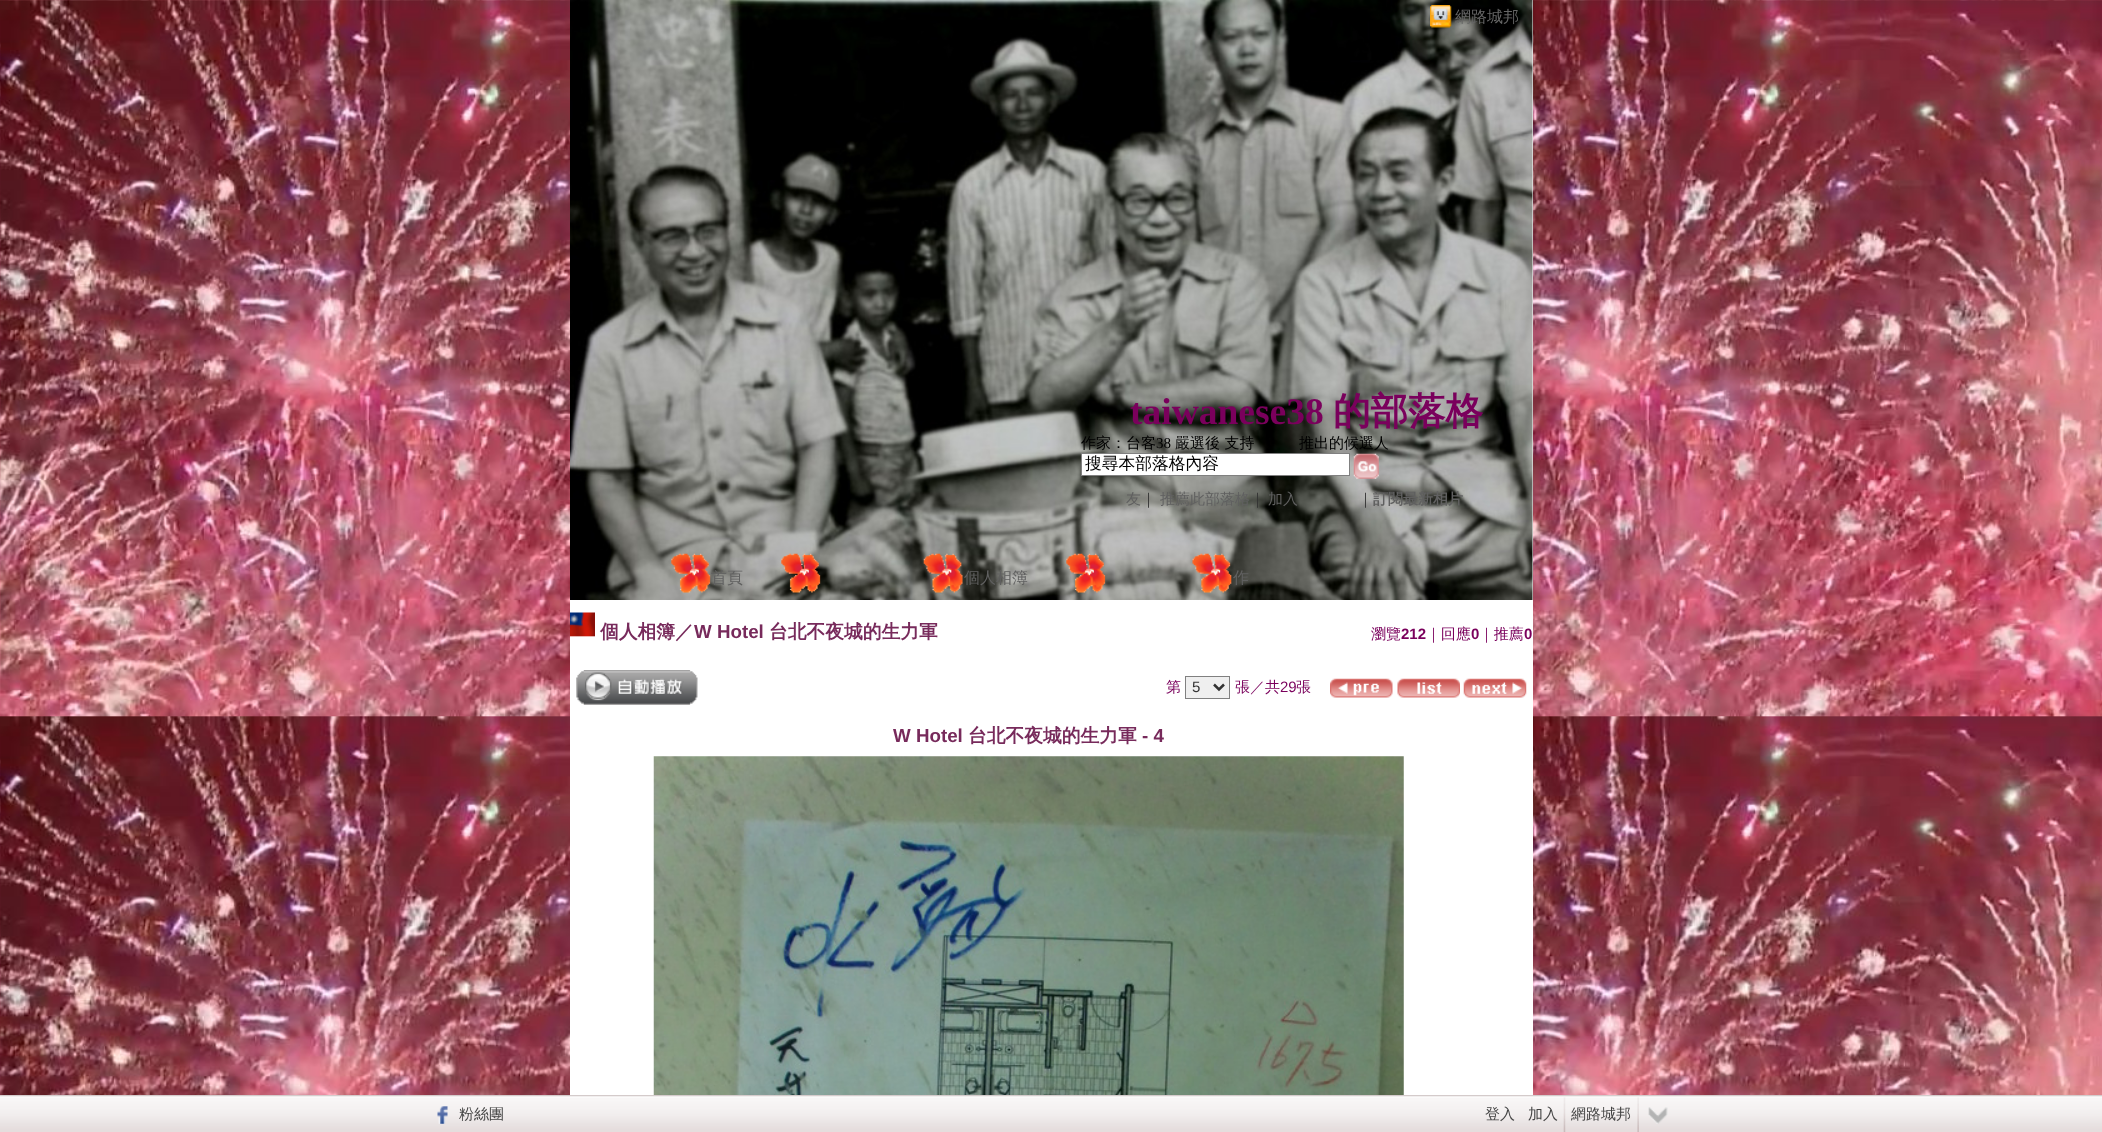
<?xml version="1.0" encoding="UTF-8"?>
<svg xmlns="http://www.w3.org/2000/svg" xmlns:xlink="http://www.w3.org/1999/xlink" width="2102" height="1132">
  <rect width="100%" height="100%" fill="#ffffff" />
  <image x="0" y="0" width="2102" height="1095" xlink:href="image1.png" />
  <rect x="570" width="963" height="1095" fill="#ffffff" />
  <image x="570" y="0" width="963" height="600" xlink:href="image3.png" />
  <image x="1430" y="5" width="22" height="23" xlink:href="image2.png" />
  <rect x="1081.5" y="453.5" width="268" height="22" fill="#ffffff" stroke="#808080" />
  <image x="1353" y="453" width="26" height="26" xlink:href="image4.png" />
  <image x="671" y="553" width="40" height="40" xlink:href="image5.png" />
  <image x="781" y="553" width="40" height="40" xlink:href="image6.png" />
  <image x="923" y="553" width="40" height="40" xlink:href="image7.png" />
  <image x="1066" y="553" width="40" height="40" xlink:href="image8.png" />
  <image x="1192" y="553" width="40" height="40" xlink:href="image9.png" />
  <image x="570" y="612" width="25" height="25" xlink:href="image10.png" />
  <image x="576" y="670" width="122" height="35" xlink:href="image11.png" />
  <rect x="1185.5" y="676.5" width="44" height="22" fill="#efefef" stroke="#808080" />
  <path d="M 1214 684.5 l 5 5 l 5 -5" fill="none" stroke="#333333" stroke-width="2.5" />
  <image x="1330" y="678" width="63" height="20" xlink:href="image12.png" />
  <image x="1397" y="678" width="63" height="20" xlink:href="image13.png" />
  <image x="1463" y="678" width="64" height="20" xlink:href="image14.png" />
  <image x="653" y="756" width="751" height="339" xlink:href="image15.png" />
  <image x="0" y="1095" width="2102" height="37" xlink:href="image16.png" />
  <image x="437" y="1106" width="11" height="18" xlink:href="image17.png" />
  <image x="1563" y="1097" width="3" height="35" xlink:href="image18.png" />
  <image x="1637" y="1097" width="2" height="35" xlink:href="image19.png" />
  <image x="1648" y="1107" width="20" height="17" xlink:href="image20.png" />
  <text x="1455" y="22" style="font-family: WenQuanYi Zen Hei; font-size: 16px; font-weight: 500; fill: #666666">網路城邦</text>
  <text x="1130" y="424" style="font-family: Liberation Serif; font-size: 37.5px; font-weight: bold; fill: #7a005c">taiwanese38</text>
  <text x="1333" y="424" style="font-family: WenQuanYi Zen Hei; font-size: 37.5px; font-weight: bold; fill: #7a005c">的部落格</text>
  <text x="1081" y="448" style="font-family: WenQuanYi Zen Hei; font-size: 15px; font-weight: 500; fill: #000000">作家：台客</text>
  <text x="1156" y="448" style="font-family: Liberation Serif; font-size: 15px; fill: #000000">38</text>
  <text x="1175" y="448" style="font-family: WenQuanYi Zen Hei; font-size: 15px; font-weight: 500; fill: #000000">嚴選後 支持</text>
  <text x="1299" y="448" style="font-family: WenQuanYi Zen Hei; font-size: 15px; font-weight: 500; fill: #000000">推出的候選人</text>
  <text x="1085" y="469" style="font-family: WenQuanYi Zen Hei; font-size: 16.75px; font-weight: 500; fill: #000000">搜尋本部落格內容</text>
  <text x="1126" y="504" style="font-family: WenQuanYi Zen Hei; font-size: 15px; font-weight: 500; fill: #606060">友</text>
  <text x="1141" y="504" style="font-family: WenQuanYi Zen Hei; font-size: 15px; font-weight: 500; fill: #333333">｜</text>
  <text x="1160" y="504" style="font-family: WenQuanYi Zen Hei; font-size: 15px; font-weight: 500; fill: #606060">推薦此部落格</text>
  <text x="1250" y="504" style="font-family: WenQuanYi Zen Hei; font-size: 15px; font-weight: 500; fill: #333333">｜</text>
  <text x="1268" y="504" style="font-family: WenQuanYi Zen Hei; font-size: 15px; font-weight: 500; fill: #606060">加入</text>
  <text x="1358" y="504" style="font-family: WenQuanYi Zen Hei; font-size: 15px; font-weight: 500; fill: #333333">｜</text>
  <text x="1373" y="504" style="font-family: WenQuanYi Zen Hei; font-size: 15px; font-weight: bold; fill: #606060">訂閱最新相片</text>
  <text x="711" y="583" style="font-family: WenQuanYi Zen Hei; font-size: 16px; font-weight: 500; fill: #606060">首頁</text>
  <text x="964" y="583" style="font-family: WenQuanYi Zen Hei; font-size: 16px; font-weight: 500; fill: #606060">個人相簿</text>
  <text x="1233" y="583" style="font-family: WenQuanYi Zen Hei; font-size: 16px; font-weight: 500; fill: #606060">作</text>
  <text x="600" y="638" style="font-family: WenQuanYi Zen Hei; font-size: 18.75px; font-weight: bold; fill: #772a5b">個人相簿／</text>
  <text x="694" y="638" style="font-family: Liberation Sans; font-size: 18.75px; font-weight: bold; fill: #772a5b">W Hotel</text>
  <text x="769" y="638" style="font-family: WenQuanYi Zen Hei; font-size: 18.75px; font-weight: bold; fill: #772a5b">台北不夜城的生力軍</text>
  <text x="1371" y="639" style="font-family: WenQuanYi Zen Hei; font-size: 15px; font-weight: 500; fill: #7a005c">瀏覽</text>
  <text x="1401" y="639" style="font-family: Liberation Sans; font-size: 15px; font-weight: bold; fill: #7a005c">212</text>
  <text x="1426" y="639" style="font-family: WenQuanYi Zen Hei; font-size: 15px; font-weight: 500; fill: #7a005c">｜回應</text>
  <text x="1471" y="639" style="font-family: Liberation Sans; font-size: 15px; font-weight: bold; fill: #7a005c">0</text>
  <text x="1479" y="639" style="font-family: WenQuanYi Zen Hei; font-size: 15px; font-weight: 500; fill: #7a005c">｜推薦</text>
  <text x="1524" y="639" style="font-family: Liberation Sans; font-size: 15px; font-weight: bold; fill: #7a005c">0</text>
  <text x="1166" y="692" style="font-family: WenQuanYi Zen Hei; font-size: 15px; font-weight: 500; fill: #7a005c">第</text>
  <text x="1192" y="692" style="font-family: Liberation Sans; font-size: 15px; fill: #333333">5</text>
  <text x="1235" y="692" style="font-family: WenQuanYi Zen Hei; font-size: 15px; font-weight: 500; fill: #7a005c">張／共</text>
  <text x="1280" y="692" style="font-family: Liberation Sans; font-size: 15px; fill: #7a005c">29</text>
  <text x="1296" y="692" style="font-family: WenQuanYi Zen Hei; font-size: 15px; font-weight: 500; fill: #7a005c">張</text>
  <text x="893" y="742" style="font-family: Liberation Sans; font-size: 18.75px; font-weight: bold; fill: #772a5b">W Hotel</text>
  <text x="968" y="742" style="font-family: WenQuanYi Zen Hei; font-size: 18.75px; font-weight: bold; fill: #772a5b">台北不夜城的生力軍</text>
  <text x="1142" y="742" style="font-family: Liberation Sans; font-size: 18.75px; font-weight: bold; fill: #772a5b">- 4</text>
  <text x="459" y="1119" style="font-family: WenQuanYi Zen Hei; font-size: 15px; font-weight: 500; fill: #444444">粉絲團</text>
  <text x="1485" y="1119" style="font-family: WenQuanYi Zen Hei; font-size: 15px; font-weight: 500; fill: #444444">登入</text>
  <text x="1528" y="1119" style="font-family: WenQuanYi Zen Hei; font-size: 15px; font-weight: 500; fill: #444444">加入</text>
  <text x="1571" y="1119" style="font-family: WenQuanYi Zen Hei; font-size: 15px; font-weight: 500; fill: #444444">網路城邦</text>
</svg>
